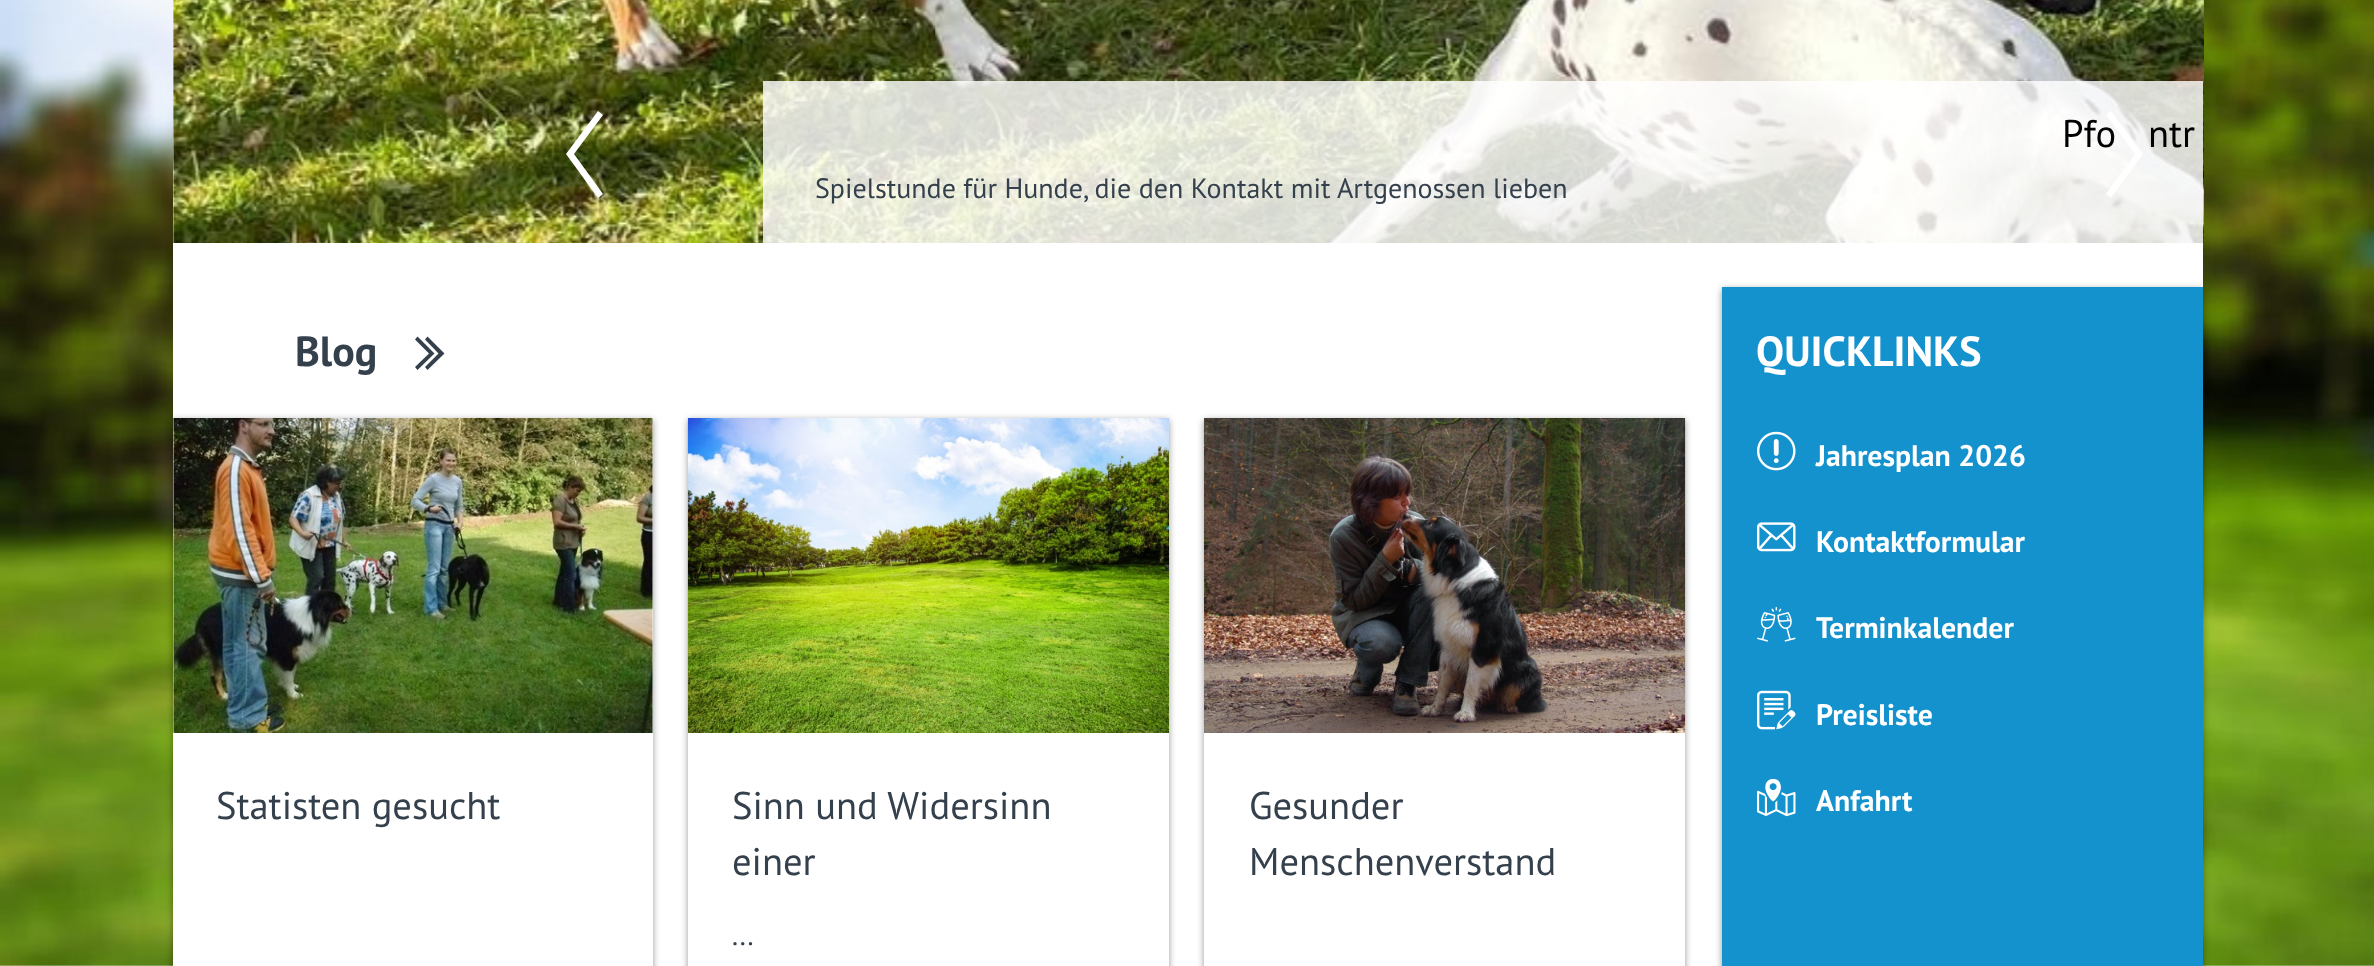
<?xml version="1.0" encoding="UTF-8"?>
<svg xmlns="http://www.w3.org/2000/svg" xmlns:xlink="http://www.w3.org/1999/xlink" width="2374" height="966">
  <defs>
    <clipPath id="clip1"><path d="M 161 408 h 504 v 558 h -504 z m 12 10 h 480 v 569 h -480 z" clip-rule="evenodd" /></clipPath>
    <clipPath id="clip2"><path d="M 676 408 h 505 v 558 h -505 z m 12 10 h 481 v 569 h -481 z" clip-rule="evenodd" /></clipPath>
    <clipPath id="clip3"><path d="M 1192 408 h 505 v 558 h -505 z m 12 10 h 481 v 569 h -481 z" clip-rule="evenodd" /></clipPath>
  </defs>
  <rect width="100%" height="100%" fill="#ffffff" />
  <image x="0" y="0" width="2374" height="966" xlink:href="image1.png" />
  <rect x="173" width="2030" height="966" fill="#ffffff" />
  <image x="173" y="0" width="2031" height="243" xlink:href="image2.png" />
  <path d="M 603 115 l -29 39 l 29 40 l -5 4 l -32 -44 l 32 -43 z" fill="#ffffff" />
  <rect x="763" y="81" width="1440" height="162" fill="#ffffff" fill-opacity="0.82" />
  <path d="M 417.5 336.5 l 17 17 l -17 16.5 l -2.5 -3 l 14 -13.5 l -14 -14 z m 10 0 l 17 17 l -17 16.5 l -2.5 -3 l 13.5 -13.5 l -13.5 -14 z" fill="#35404d" />
  <g clip-path="url(#clip1)">
    <rect x="173" y="420" width="480" height="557" fill="#000000" fill-opacity="0.4" filter="blur(3.5px)" />
  </g>
  <image x="173" y="418" width="480" height="315" xlink:href="image3.png" />
  <g clip-path="url(#clip2)">
    <rect x="688" y="420" width="481" height="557" fill="#000000" fill-opacity="0.4" filter="blur(3.5px)" />
  </g>
  <image x="687" y="418" width="482" height="315" xlink:href="image4.png" />
  <g clip-path="url(#clip3)">
    <rect x="1204" y="420" width="481" height="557" fill="#000000" fill-opacity="0.4" filter="blur(3.5px)" />
  </g>
  <image x="1204" y="418" width="482" height="315" xlink:href="image5.png" />
  <rect x="1722" y="289" width="481" height="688" fill="#000000" fill-opacity="0.4" filter="blur(3.5px)" />
  <rect x="1722" y="287" width="481" height="679" fill="#1392ce" />
  <image x="1757" y="431" width="39" height="40" xlink:href="image6.png" />
  <image x="1757" y="522" width="39" height="30" xlink:href="image7.png" />
  <image x="1757" y="607" width="39" height="35" xlink:href="image8.png" />
  <image x="1757" y="690" width="39" height="40" xlink:href="image9.png" />
  <image x="1757" y="778" width="39" height="39" xlink:href="image10.png" />
  <text x="2062" y="147" style="font-family: PT Sans; font-size: 38.5px; fill: #000000">Pfo</text>
  <path d="M 2111 111 l 32 43 l -32 44 l -5 -4 l 29 -40 l -29 -39 z" fill="#ffffff" />
  <text x="2148" y="147" style="font-family: PT Sans; font-size: 38.5px; fill: #000000">ntr</text>
  <text x="815" y="198" style="font-family: PT Sans; font-size: 28px; fill: #35404d">Spielstunde für Hunde, die den Kontakt mit Artgenossen lieben</text>
  <text x="295" y="366" style="font-family: PT Sans; font-size: 42px; font-weight: bold; fill: #35404d">Blog</text>
  <text x="216" y="819" style="font-family: PT Sans; font-size: 38.5px; fill: #35404d">Statisten gesucht</text>
  <text x="732" y="819" style="font-family: PT Sans; font-size: 38.5px; fill: #35404d">Sinn und Widersinn</text>
  <text x="732" y="875" style="font-family: PT Sans; font-size: 38.5px; fill: #35404d">einer</text>
  <text x="732" y="945" style="font-family: PT Sans; font-size: 28px; fill: #35404d">...</text>
  <text x="1249" y="819" style="font-family: PT Sans; font-size: 38.5px; fill: #35404d">Gesunder</text>
  <text x="1249" y="875" style="font-family: PT Sans; font-size: 38.5px; fill: #35404d">Menschenverstand</text>
  <text x="1756" y="366" style="font-family: PT Sans; font-size: 42px; font-weight: bold; fill: #ffffff">QUICKLINKS</text>
  <text x="1816" y="466" style="font-family: PT Sans; font-size: 29.75px; font-weight: bold; fill: #ffffff">Jahresplan 2026</text>
  <text x="1816" y="552" style="font-family: PT Sans; font-size: 29.75px; font-weight: bold; fill: #ffffff">Kontaktformular</text>
  <text x="1816" y="638" style="font-family: PT Sans; font-size: 29.75px; font-weight: bold; fill: #ffffff">Terminkalender</text>
  <text x="1816" y="725" style="font-family: PT Sans; font-size: 29.75px; font-weight: bold; fill: #ffffff">Preisliste</text>
  <text x="1816" y="811" style="font-family: PT Sans; font-size: 29.75px; font-weight: bold; fill: #ffffff">Anfahrt</text>
</svg>
